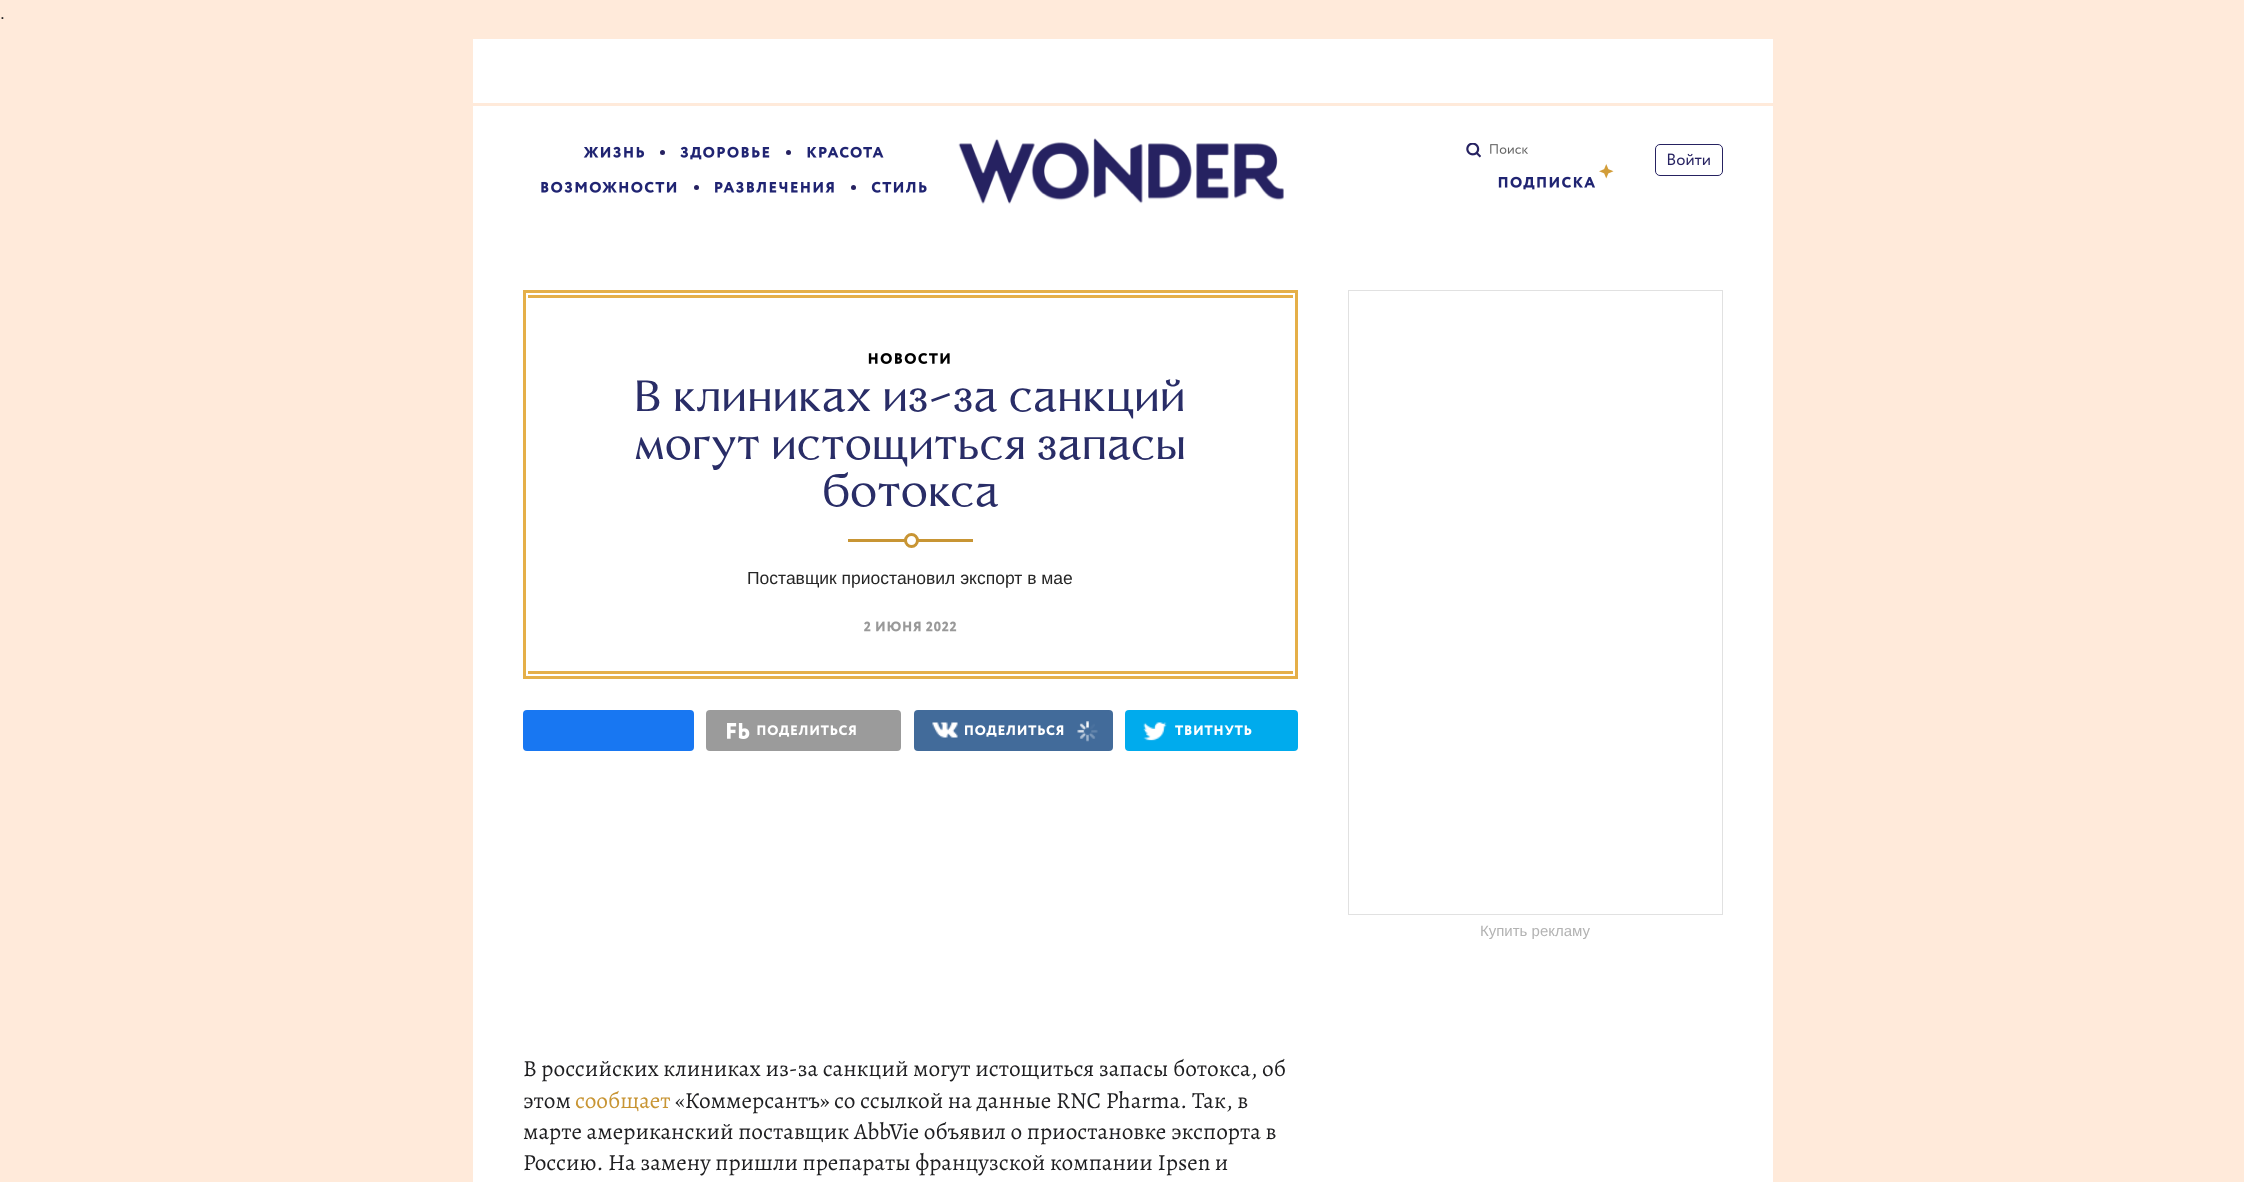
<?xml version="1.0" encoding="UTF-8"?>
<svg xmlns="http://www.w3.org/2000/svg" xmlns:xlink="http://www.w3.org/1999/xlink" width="2244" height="1182">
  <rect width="100%" height="100%" fill="#ffeada" />
  <rect x="473" y="39" width="1300" height="64" fill="#ffffff" />
  <rect x="473" y="106" width="1300" height="147" fill="#ffffff" />
  <image x="583" y="146" width="62" height="12" xlink:href="image1.png" />
  <circle cx="662.5" cy="152.5" r="2.5" fill="#262261" />
  <image x="680" y="146" width="90" height="14" xlink:href="image2.png" />
  <circle cx="788.5" cy="152.5" r="2.5" fill="#262261" />
  <image x="807" y="146" width="77" height="12" xlink:href="image3.png" />
  <image x="541" y="181" width="136" height="12" xlink:href="image4.png" />
  <circle cx="696.5" cy="187.5" r="2.5" fill="#262261" />
  <image x="715" y="181" width="119" height="12" xlink:href="image5.png" />
  <circle cx="853.5" cy="187.5" r="2.5" fill="#262261" />
  <image x="871" y="181" width="56" height="12" xlink:href="image6.png" />
  <image x="958" y="138" width="326" height="66" xlink:href="image7.png" />
  <image x="1466" y="143" width="15" height="15" xlink:href="image8.png" />
  <image x="1490" y="144" width="38" height="10" xlink:href="image9.png" />
  <rect x="1655.5" y="144.5" width="67" height="31" rx="4.5" fill="none" stroke="#262261" />
  <image x="1667" y="153" width="43" height="13" xlink:href="image10.png" />
  <image x="1599" y="164" width="15" height="15" xlink:href="image11.png" />
  <image x="1498" y="176" width="97" height="14" xlink:href="image12.png" />
  <rect x="473" y="253" width="1300" height="929" fill="#ffffff" />
  <rect x="524.5" y="291.5" width="772" height="386" fill="none" stroke="#e5af48" stroke-width="3" />
  <rect x="528" y="295" width="765" height="3" fill="#e5af48" />
  <image x="868" y="353" width="82" height="11" xlink:href="image13.png" />
  <rect x="848" y="539" width="125" height="3" fill="#c89534" />
  <circle cx="911.5" cy="540.5" r="6" fill="#ffffff" stroke="#c89534" stroke-width="3" />
  <image x="864" y="621" width="93" height="11" xlink:href="image14.png" />
  <rect x="528" y="671" width="765" height="3" fill="#e5af48" />
  <rect x="523" y="710" width="171" height="41" rx="4" fill="#1877f2" />
  <rect x="706" y="710" width="195" height="41" rx="4" fill="#9b9b9b" />
  <image x="727" y="723" width="23" height="16" xlink:href="image15.png" />
  <image x="757" y="725" width="99" height="12" xlink:href="image16.png" />
  <rect x="914" y="710" width="199" height="41" rx="4" fill="#426b9a" />
  <image x="932" y="722" width="26" height="16" xlink:href="image17.png" />
  <image x="965" y="725" width="99" height="12" xlink:href="image18.png" />
  <image x="1077" y="721" width="21" height="21" xlink:href="image19.png" />
  <rect x="1125" y="710" width="173" height="41" rx="4" fill="#00abed" />
  <image x="1143" y="722" width="24" height="19" xlink:href="image20.png" />
  <image x="1175" y="725" width="77" height="11" xlink:href="image21.png" />
  <rect x="1348.5" y="290.5" width="374" height="624" fill="none" stroke="#e1e1e1" />
  <text x="0" y="19" style="font-family: Liberation Sans; font-size: 17.5px; fill: #262626">.</text>
  <text x="634" y="411" style="font-family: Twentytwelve; font-size: 43.75px; fill: #292d67">В клиниках из-за санкций</text>
  <text x="634" y="459" style="font-family: Twentytwelve; font-size: 43.75px; fill: #292d67">могут истощиться запасы</text>
  <text x="822" y="506" style="font-family: Twentytwelve; font-size: 43.75px; fill: #292d67">ботокса</text>
  <text x="747" y="584" style="font-family: Liberation Sans; font-size: 17.5px; fill: #262626">Поставщик приостановил экспорт в мае</text>
  <text x="1480" y="936" style="font-family: Liberation Sans; font-size: 15px; fill: #b3b3b3">Купить рекламу</text>
  <text x="523" y="1076" style="font-family: Alegreya; font-size: 23.1px; fill: #1e1e20">В российских клиниках из-за санкций могут истощиться запасы ботокса, об</text>
  <text x="523" y="1108" style="font-family: Alegreya; font-size: 23.1px; fill: #1e1e20">этом</text>
  <text x="575" y="1108" style="font-family: Alegreya; font-size: 23.1px; fill: #c89534">сообщает</text>
  <text x="675" y="1108" style="font-family: Alegreya; font-size: 23.1px; fill: #1e1e20">«Коммерсантъ» со ссылкой на данные RNC Pharma. Так, в</text>
  <text x="523" y="1139" style="font-family: Alegreya; font-size: 23.1px; fill: #1e1e20">марте американский поставщик AbbVie объявил о приостановке экспорта в</text>
  <text x="523" y="1170" style="font-family: Alegreya; font-size: 23.1px; fill: #1e1e20">Россию. На замену пришли препараты французской компании Ipsen и</text>
</svg>
